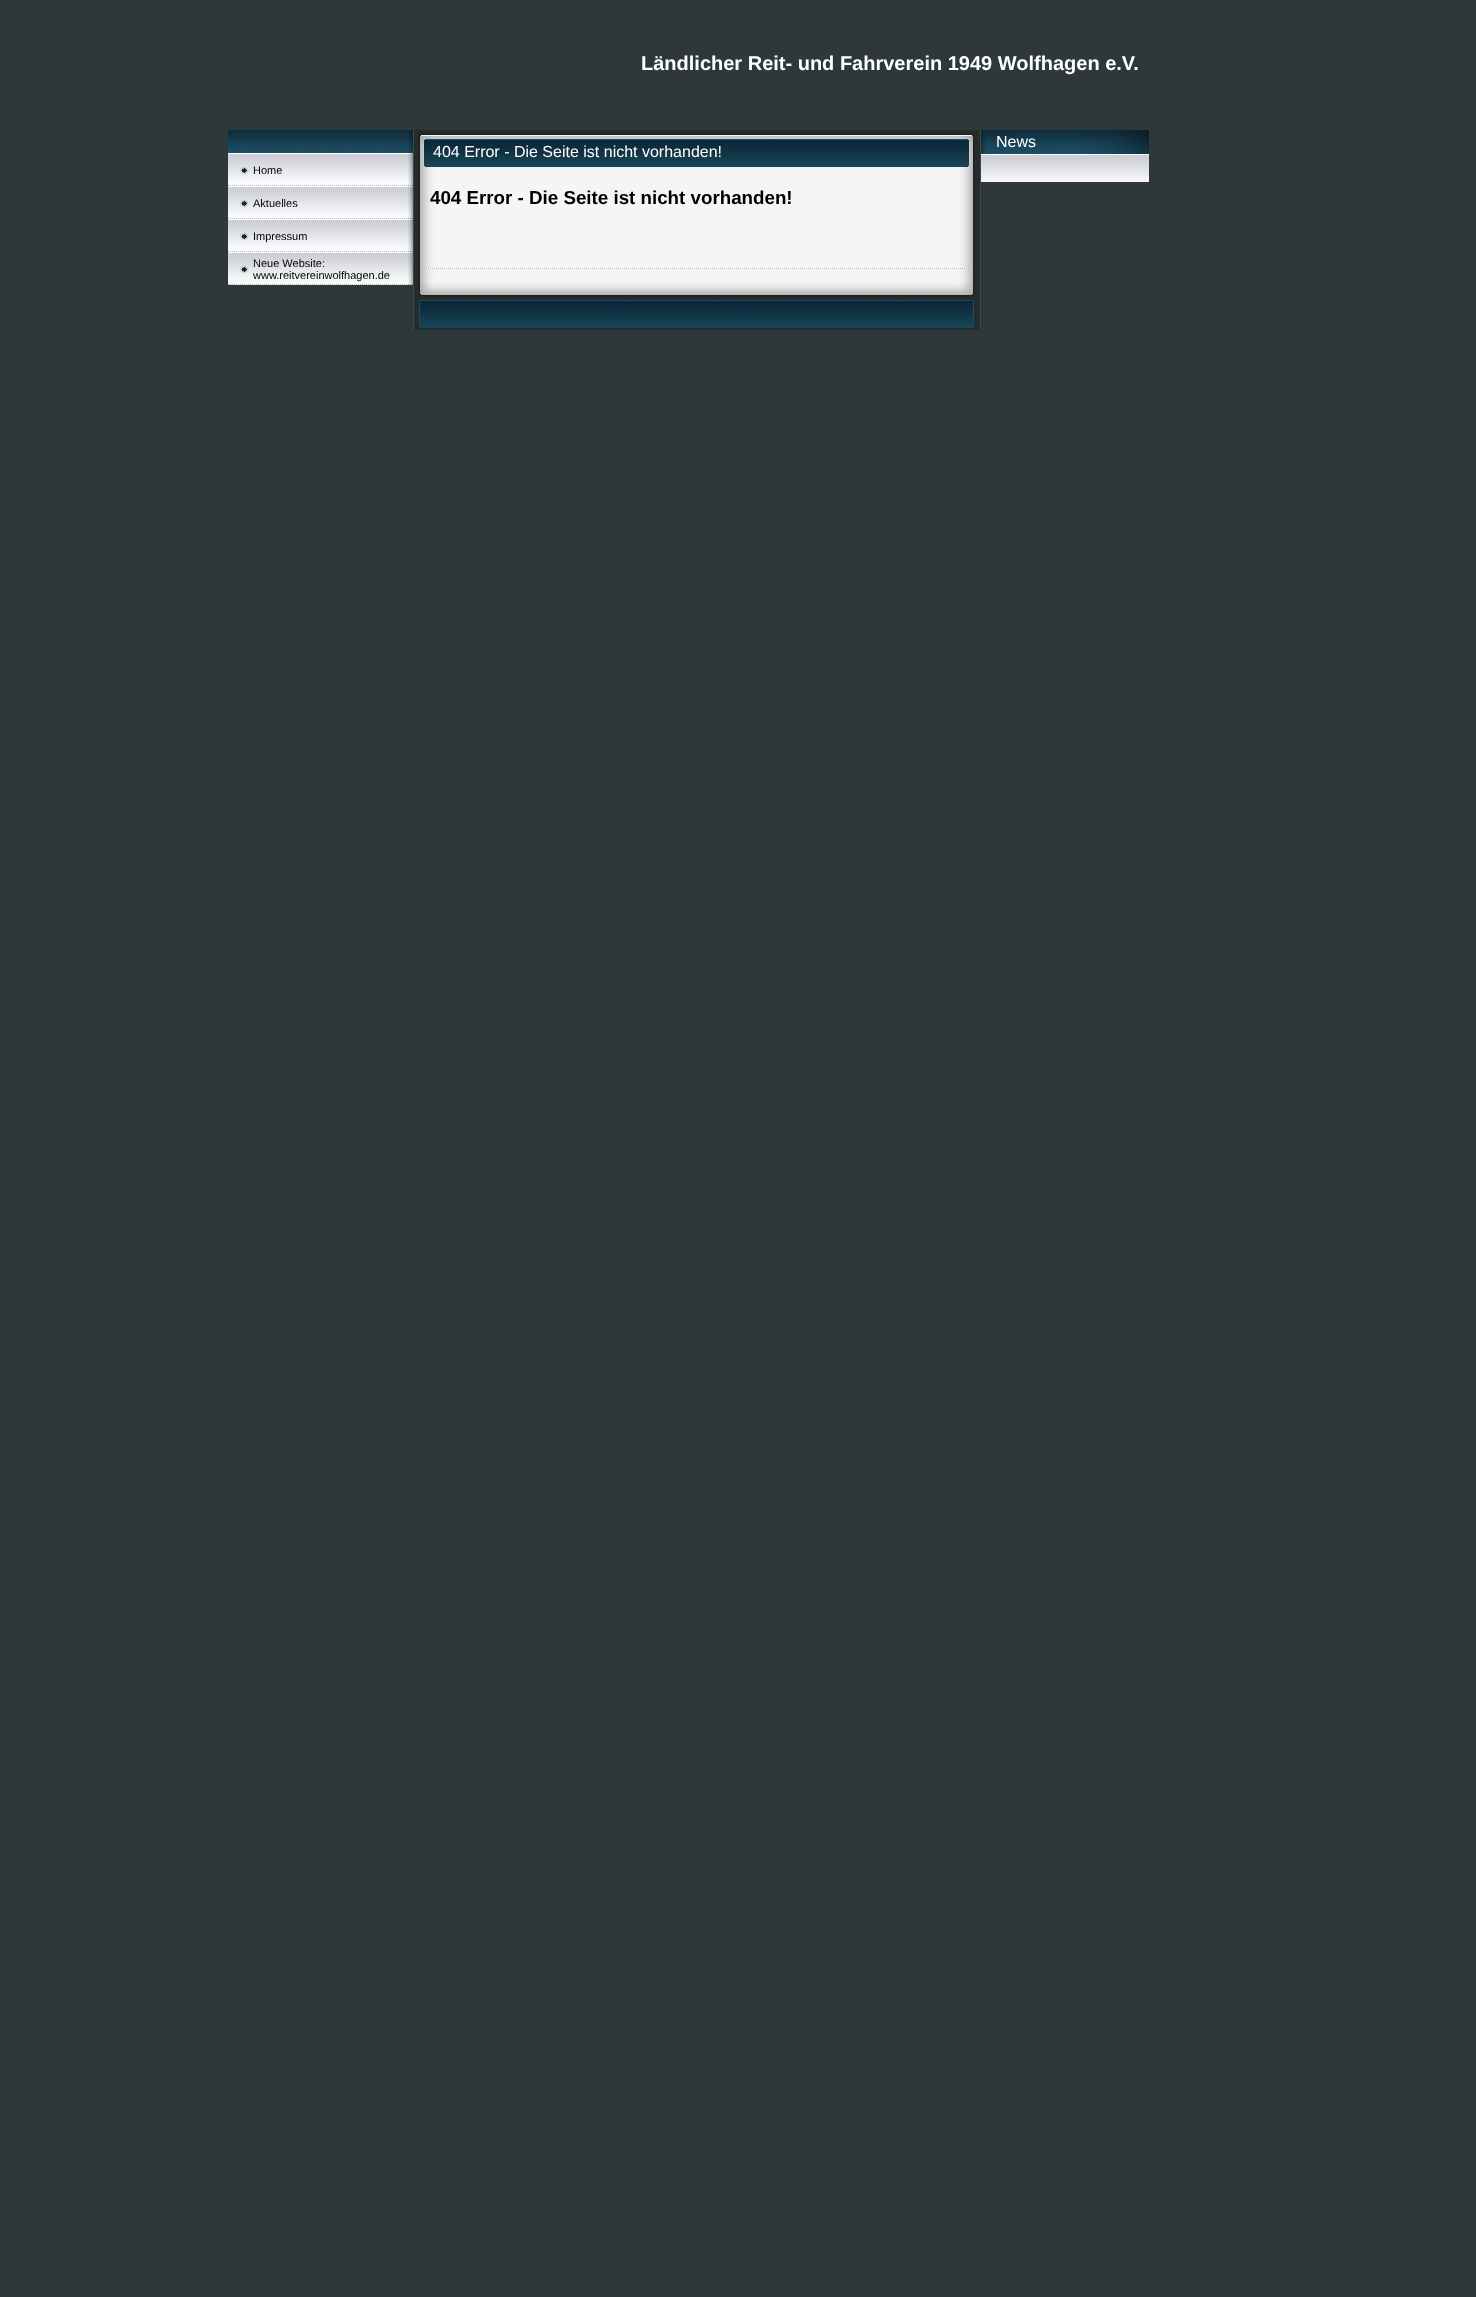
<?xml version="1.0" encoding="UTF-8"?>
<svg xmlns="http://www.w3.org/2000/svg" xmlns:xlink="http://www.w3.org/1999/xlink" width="1476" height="2297">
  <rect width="100%" height="100%" fill="#2e3839" />
  <image x="981" y="130" width="168" height="24" xlink:href="image1.png" />
  <image x="981" y="154" width="168" height="28" xlink:href="image2.png" />
  <image x="228" y="130" width="185" height="23" xlink:href="image3.png" />
  <image x="228" y="153" width="185" height="33" xlink:href="image4.png" />
  <image x="228" y="186" width="185" height="33" xlink:href="image4.png" />
  <image x="228" y="219" width="185" height="33" xlink:href="image4.png" />
  <image x="228" y="252" width="185" height="33" xlink:href="image4.png" />
  <image x="413" y="130" width="568" height="38" xlink:href="image5.png" />
  <image x="413" y="168" width="568" height="100" xlink:href="image6.png" />
  <image x="413" y="268" width="568" height="31" xlink:href="image7.png" />
  <image x="413" y="299" width="568" height="31" xlink:href="image8.png" />
  <text x="641" y="70" style="font-family: Liberation Sans; font-size: 20px; font-weight: bold; fill: #ffffff">Ländlicher Reit- und Fahrverein 1949 Wolfhagen e.V.</text>
  <text x="996" y="147" style="font-family: Liberation Sans; font-size: 16px; fill: #ffffff">News</text>
  <text x="253" y="174" style="font-family: Liberation Sans; font-size: 11px; fill: #000000">Home</text>
  <text x="253" y="207" style="font-family: Liberation Sans; font-size: 11px; fill: #000000">Aktuelles</text>
  <text x="253" y="240" style="font-family: Liberation Sans; font-size: 11px; fill: #000000">Impressum</text>
  <text x="253" y="267" style="font-family: Liberation Sans; font-size: 11px; fill: #000000">Neue Website:</text>
  <text x="253" y="279" style="font-family: Liberation Sans; font-size: 11px; fill: #000000">www.reitvereinwolfhagen.de</text>
  <text x="433" y="157" style="font-family: Liberation Sans; font-size: 16px; fill: #ffffff">404 Error - Die Seite ist nicht vorhanden!</text>
  <text x="430" y="204" style="font-family: Liberation Sans; font-size: 18.75px; font-weight: bold; fill: #000000">404 Error - Die Seite ist nicht vorhanden!</text>
</svg>
